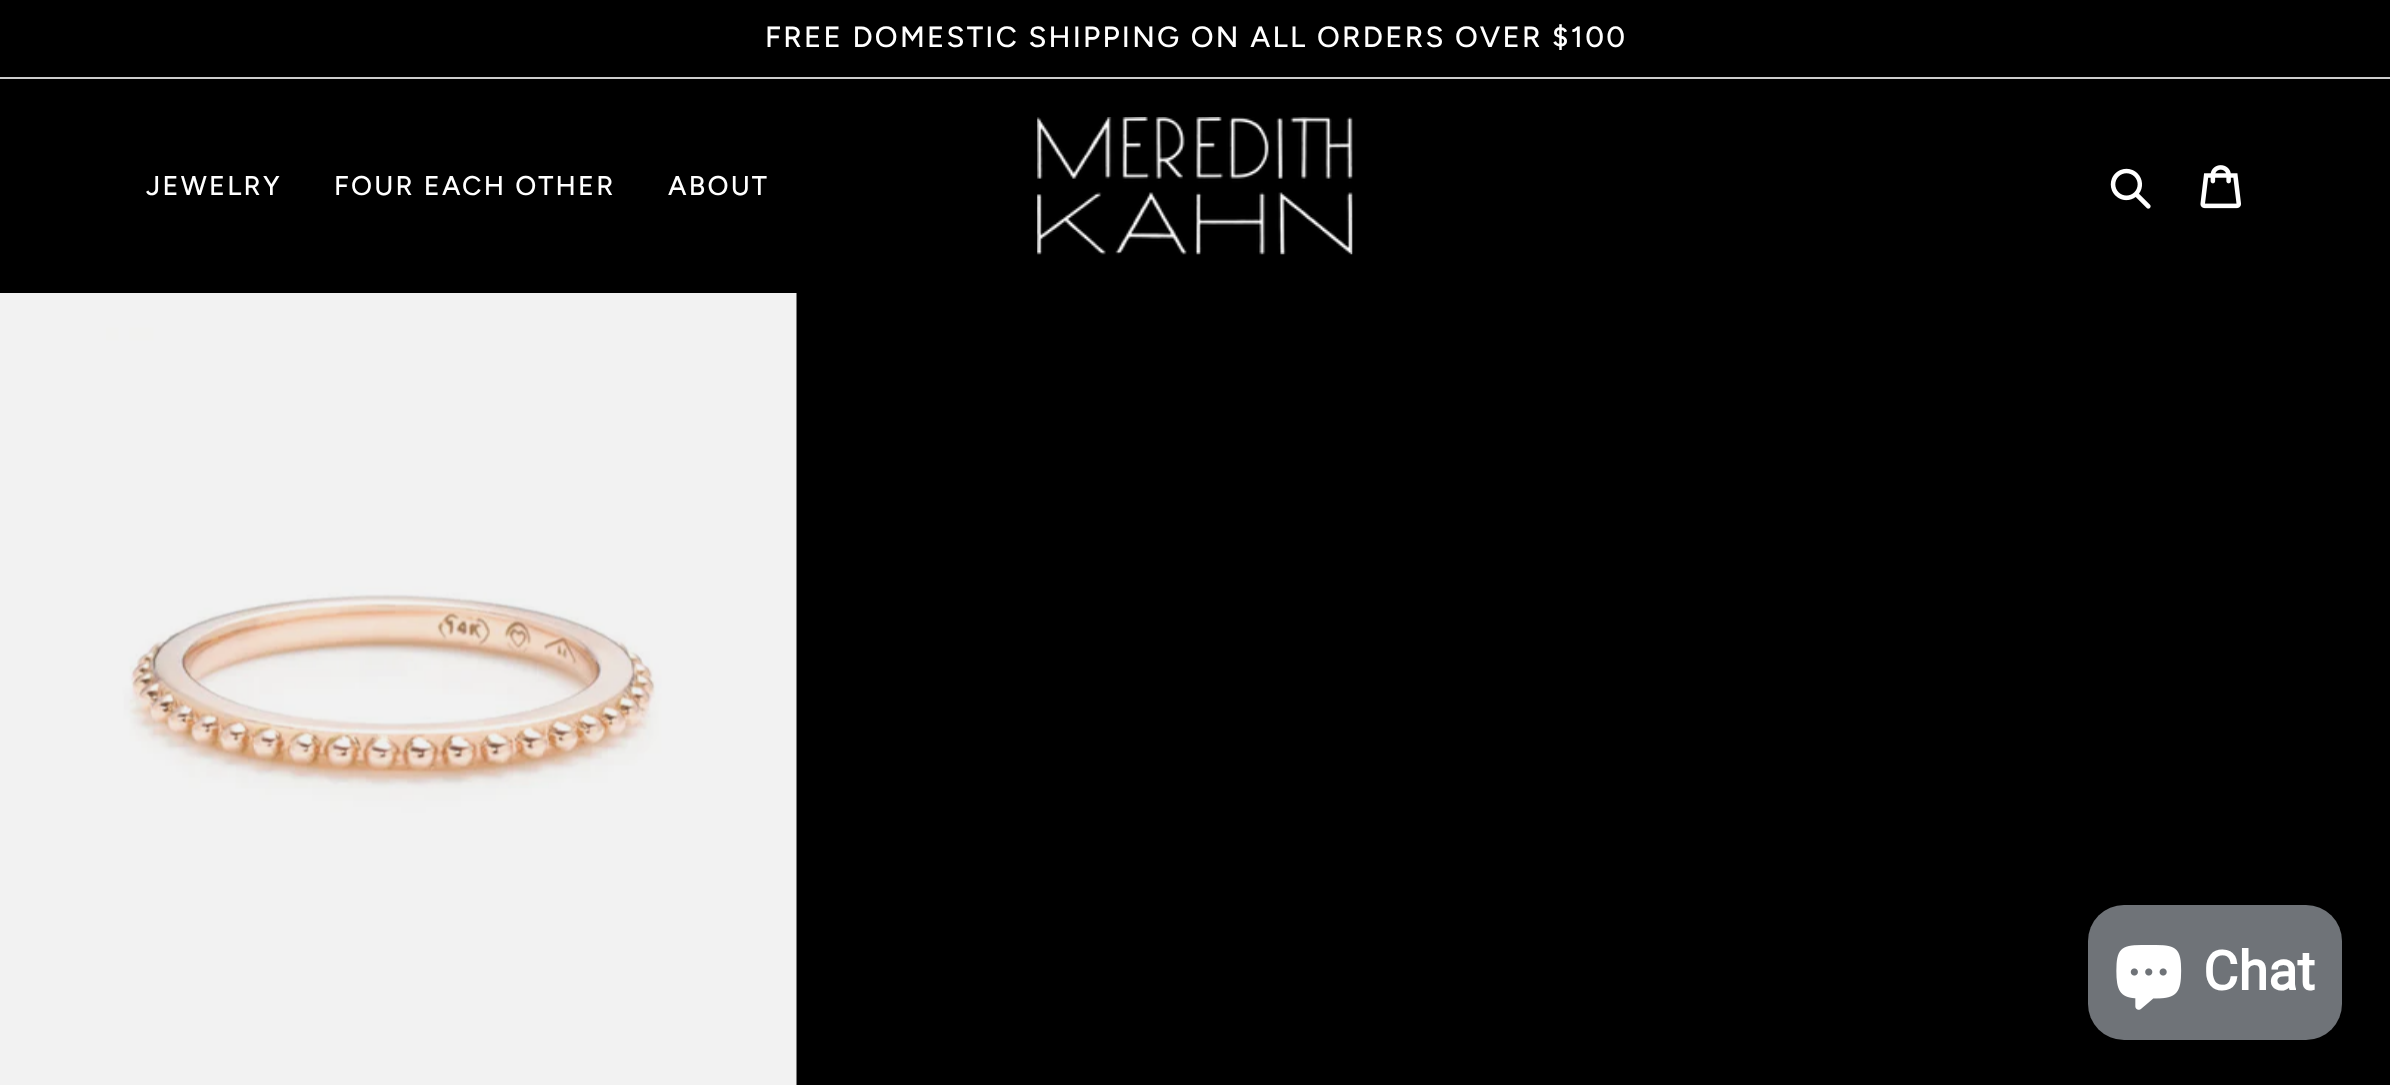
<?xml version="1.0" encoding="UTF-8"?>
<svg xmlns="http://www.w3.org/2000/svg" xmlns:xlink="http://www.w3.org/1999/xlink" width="2390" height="1085">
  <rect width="100%" height="100%" fill="#000000" />
  <rect y="77" width="2390" height="2" fill="#cccccc" />
  <image x="1037" y="117" width="316" height="138" xlink:href="image1.png" />
  <image x="2110" y="168" width="41" height="41" xlink:href="image2.png" />
  <image x="2200" y="165" width="41" height="44" xlink:href="image3.png" />
  <image x="0" y="293" width="797" height="792" xlink:href="image4.png" />
  <rect x="2088" y="905" width="254" height="135" rx="36" fill="#6f7378" />
  <image x="2116" y="945" width="66" height="65" xlink:href="image5.png" />
  <text x="765" y="47" style="font-family: Figtree; font-size: 29.25px; font-weight: 500; letter-spacing: 2.25px; fill: #ffffff">FREE DOMESTIC SHIPPING ON ALL ORDERS OVER $100</text>
  <text x="146" y="195" style="font-family: Figtree; font-size: 27px; font-weight: 500; letter-spacing: 2.25px; fill: #ffffff">JEWELRY</text>
  <text x="334" y="195" style="font-family: Figtree; font-size: 27px; font-weight: 500; letter-spacing: 2.25px; fill: #ffffff">FOUR EACH OTHER</text>
  <text x="668" y="195" style="font-family: Figtree; font-size: 27px; font-weight: 500; letter-spacing: 2.25px; fill: #ffffff">ABOUT</text>
  <text x="2203" y="990" style="font-family: Roboto; font-size: 54px; font-weight: bold; fill: #ffffff">Chat</text>
</svg>
